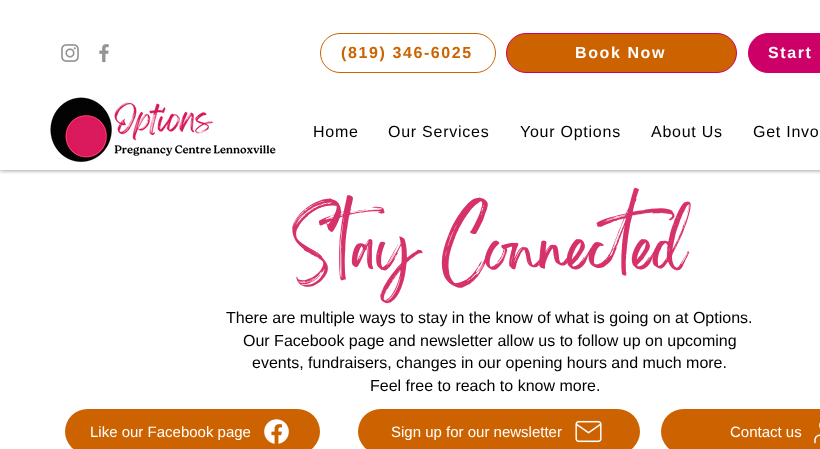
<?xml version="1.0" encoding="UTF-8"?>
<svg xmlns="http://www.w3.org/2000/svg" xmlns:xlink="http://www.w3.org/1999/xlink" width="820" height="449">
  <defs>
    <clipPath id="clip1"><rect x="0" y="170" width="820" height="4" /></clipPath>
  </defs>
  <rect width="100%" height="100%" fill="#ffffff" />
  <g clip-path="url(#clip1)">
    <rect width="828" height="170" fill="#000000" fill-opacity="0.5" filter="blur(2.5px)" />
  </g>
  <image x="61" y="44" width="18" height="18" xlink:href="image1.png" />
  <image x="99" y="44" width="10" height="19" xlink:href="image2.png" />
  <rect x="320.5" y="33.5" width="175" height="39" rx="19.5" fill="none" stroke="#cc6300" />
  <rect x="506.5" y="33.5" width="230" height="39" rx="19.5" fill="#cc6300" stroke="#cc0066" />
  <rect x="748.5" y="33.5" width="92" height="39" rx="19.5" fill="#cc0066" stroke="#cc0066" />
  <image x="50" y="97" width="226" height="66" xlink:href="image3.png" />
  <rect x="65" y="409" width="255" height="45" rx="22.5" fill="#cc6300" />
  <image x="264" y="419" width="25" height="25" xlink:href="image4.png" />
  <rect x="358" y="409" width="282" height="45" rx="22.5" fill="#cc6300" />
  <image x="575" y="420" width="27" height="23" xlink:href="image5.png" />
  <rect x="661" y="409" width="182" height="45" rx="22.5" fill="#cc6300" />
  <image x="814" y="422" width="6" height="22" xlink:href="image6.png" />
  <text x="341" y="58" style="font-family: Liberation Sans; font-size: 16px; font-weight: bold; letter-spacing: 1.6px; fill: #cc6300">(819) 346-6025</text>
  <text x="575" y="58" style="font-family: Liberation Sans; font-size: 16px; font-weight: bold; letter-spacing: 1.6px; fill: #ffffff">Book Now</text>
  <text x="768" y="58" style="font-family: Liberation Sans; font-size: 16px; font-weight: bold; letter-spacing: 1.6px; fill: #ffffff">Start</text>
  <text x="313" y="137" style="font-family: Liberation Sans; font-size: 16px; letter-spacing: 0.75px; fill: #000000">Home</text>
  <text x="388" y="137" style="font-family: Liberation Sans; font-size: 16px; letter-spacing: 0.75px; fill: #000000">Our Services</text>
  <text x="520" y="137" style="font-family: Liberation Sans; font-size: 16px; letter-spacing: 0.75px; fill: #000000">Your Options</text>
  <text x="651" y="137" style="font-family: Liberation Sans; font-size: 16px; letter-spacing: 0.75px; fill: #000000">About Us</text>
  <text x="753" y="137" style="font-family: Liberation Sans; font-size: 16px; letter-spacing: 0.75px; fill: #000000">Get Invo</text>
  <text x="292" y="279" style="font-family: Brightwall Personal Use; font-size: 56px; fill: #d6316b">Stay Connected</text>
  <text x="226" y="323" style="font-family: Liberation Sans; font-size: 16px; fill: #000000">There are multiple ways to stay in the know of what is going on at Options.</text>
  <text x="243" y="346" style="font-family: Liberation Sans; font-size: 16px; fill: #000000">Our Facebook page and newsletter allow us to follow up on upcoming</text>
  <text x="252" y="368" style="font-family: Liberation Sans; font-size: 16px; fill: #000000">events, fundraisers, changes in our opening hours and much more.</text>
  <text x="370" y="391" style="font-family: Liberation Sans; font-size: 16px; fill: #000000">Feel free to reach to know more.</text>
  <text x="90" y="437" style="font-family: Liberation Sans; font-size: 15px; fill: #ffffff">Like our Facebook page</text>
  <text x="391" y="437" style="font-family: Liberation Sans; font-size: 15px; fill: #ffffff">Sign up for our newsletter</text>
  <text x="730" y="437" style="font-family: Liberation Sans; font-size: 15px; fill: #ffffff">Contact us</text>
</svg>
